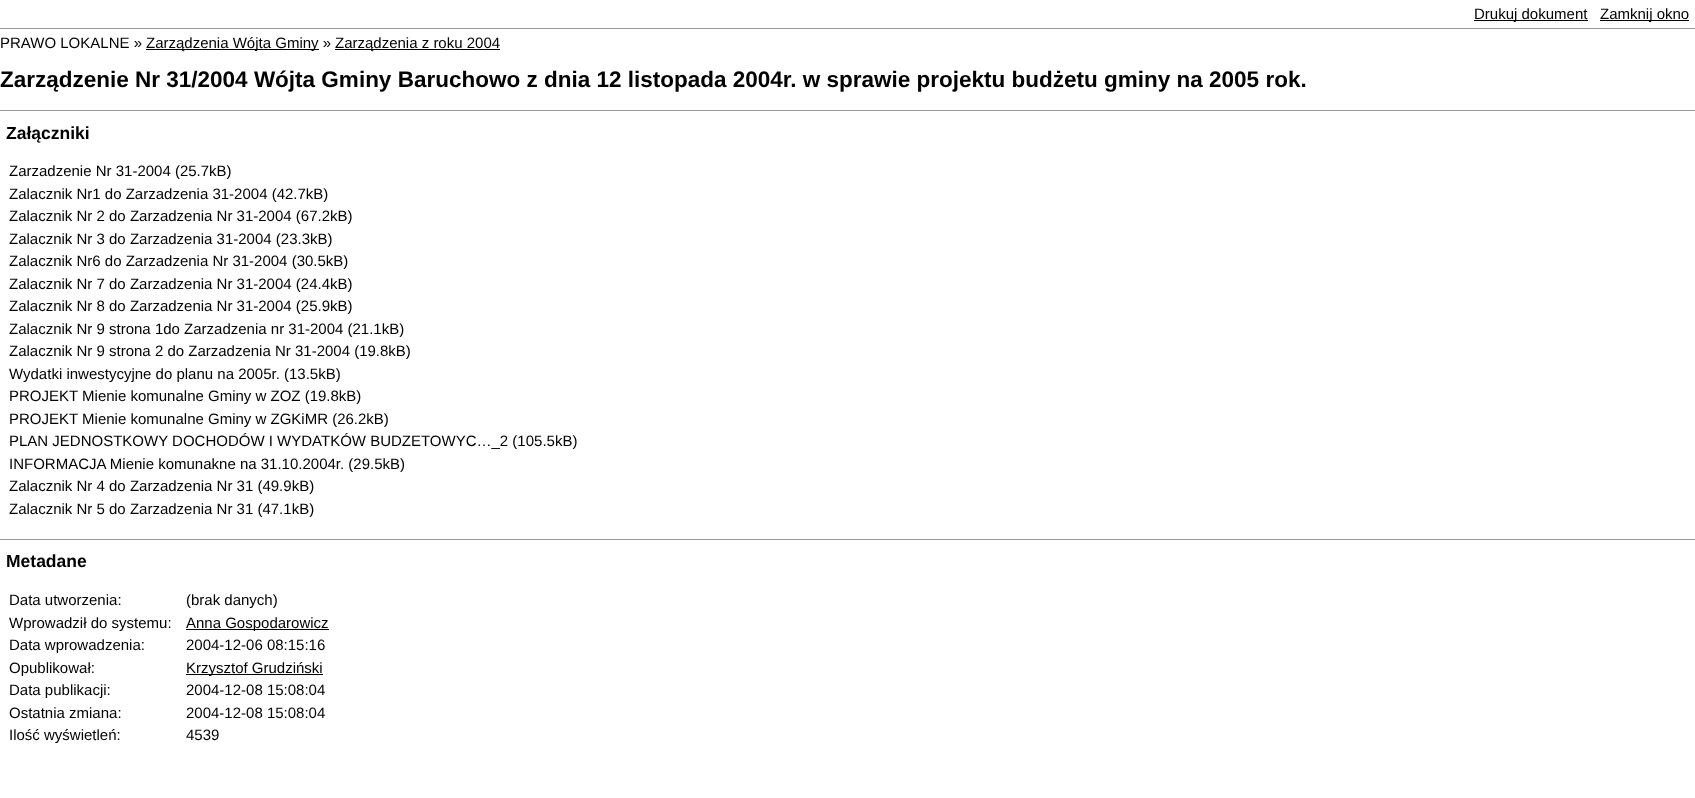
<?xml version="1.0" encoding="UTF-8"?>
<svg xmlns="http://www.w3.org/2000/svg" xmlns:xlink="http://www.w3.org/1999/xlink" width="1695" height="798">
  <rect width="100%" height="100%" fill="#ffffff" />
  <rect y="28" width="1695" height="1" fill="#999999" />
  <rect x="1474" y="20" width="114" height="1" fill="#000000" />
  <rect x="1600" y="20" width="89" height="1" fill="#000000" />
  <rect x="146" y="49" width="173" height="1" fill="#000000" />
  <rect x="335" y="49" width="165" height="1" fill="#000000" />
  <rect y="110" width="1695" height="1" fill="#999999" />
  <rect y="539" width="1695" height="1" fill="#999999" />
  <rect x="186" y="629" width="143" height="1" fill="#000000" />
  <rect x="186" y="674" width="137" height="1" fill="#000000" />
  <text x="1474" y="19" style="font-family: Liberation Sans; font-size: 15px; fill: #000000">Drukuj dokument</text>
  <text x="1600" y="19" style="font-family: Liberation Sans; font-size: 15px; fill: #000000">Zamknij okno</text>
  <text x="0" y="48" style="font-family: Liberation Sans; font-size: 15px; fill: #000000">PRAWO LOKALNE »</text>
  <text x="146" y="48" style="font-family: Liberation Sans; font-size: 15px; fill: #000000">Zarządzenia Wójta Gminy »</text>
  <text x="335" y="48" style="font-family: Liberation Sans; font-size: 15px; fill: #000000">Zarządzenia z roku 2004</text>
  <text x="0" y="87" style="font-family: Liberation Sans; font-size: 22.5px; font-weight: bold; fill: #000000">Zarządzenie Nr 31/2004 Wójta Gminy Baruchowo z dnia 12 listopada 2004r. w sprawie projektu budżetu gminy na 2005 rok.</text>
  <text x="6" y="139" style="font-family: Liberation Sans; font-size: 17.5px; font-weight: bold; fill: #000000">Załączniki</text>
  <text x="9" y="176" style="font-family: Liberation Sans; font-size: 15px; fill: #000000">Zarzadzenie Nr 31-2004 (25.7kB)</text>
  <text x="9" y="199" style="font-family: Liberation Sans; font-size: 15px; fill: #000000">Zalacznik Nr1 do Zarzadzenia 31-2004 (42.7kB)</text>
  <text x="9" y="221" style="font-family: Liberation Sans; font-size: 15px; fill: #000000">Zalacznik Nr 2 do Zarzadzenia Nr 31-2004 (67.2kB)</text>
  <text x="9" y="244" style="font-family: Liberation Sans; font-size: 15px; fill: #000000">Zalacznik Nr 3 do Zarzadzenia 31-2004 (23.3kB)</text>
  <text x="9" y="266" style="font-family: Liberation Sans; font-size: 15px; fill: #000000">Zalacznik Nr6 do Zarzadzenia Nr 31-2004 (30.5kB)</text>
  <text x="9" y="289" style="font-family: Liberation Sans; font-size: 15px; fill: #000000">Zalacznik Nr 7 do Zarzadzenia Nr 31-2004 (24.4kB)</text>
  <text x="9" y="311" style="font-family: Liberation Sans; font-size: 15px; fill: #000000">Zalacznik Nr 8 do Zarzadzenia Nr 31-2004 (25.9kB)</text>
  <text x="9" y="334" style="font-family: Liberation Sans; font-size: 15px; fill: #000000">Zalacznik Nr 9 strona 1do Zarzadzenia nr 31-2004 (21.1kB)</text>
  <text x="9" y="356" style="font-family: Liberation Sans; font-size: 15px; fill: #000000">Zalacznik Nr 9 strona 2 do Zarzadzenia Nr 31-2004 (19.8kB)</text>
  <text x="9" y="379" style="font-family: Liberation Sans; font-size: 15px; fill: #000000">Wydatki inwestycyjne do planu na 2005r. (13.5kB)</text>
  <text x="9" y="401" style="font-family: Liberation Sans; font-size: 15px; fill: #000000">PROJEKT Mienie komunalne Gminy w ZOZ (19.8kB)</text>
  <text x="9" y="424" style="font-family: Liberation Sans; font-size: 15px; fill: #000000">PROJEKT Mienie komunalne Gminy w ZGKiMR (26.2kB)</text>
  <text x="9" y="446" style="font-family: Liberation Sans; font-size: 15px; fill: #000000">PLAN JEDNOSTKOWY DOCHODÓW I WYDATKÓW BUDZETOWYC…_2 (105.5kB)</text>
  <text x="9" y="469" style="font-family: Liberation Sans; font-size: 15px; fill: #000000">INFORMACJA Mienie komunakne na 31.10.2004r. (29.5kB)</text>
  <text x="9" y="491" style="font-family: Liberation Sans; font-size: 15px; fill: #000000">Zalacznik Nr 4 do Zarzadzenia Nr 31 (49.9kB)</text>
  <text x="9" y="514" style="font-family: Liberation Sans; font-size: 15px; fill: #000000">Zalacznik Nr 5 do Zarzadzenia Nr 31 (47.1kB)</text>
  <text x="6" y="567" style="font-family: Liberation Sans; font-size: 17.5px; font-weight: bold; fill: #000000">Metadane</text>
  <text x="9" y="605" style="font-family: Liberation Sans; font-size: 15px; fill: #000000">Data utworzenia:</text>
  <text x="186" y="605" style="font-family: Liberation Sans; font-size: 15px; fill: #000000">(brak danych)</text>
  <text x="9" y="628" style="font-family: Liberation Sans; font-size: 15px; fill: #000000">Wprowadził do systemu:</text>
  <text x="186" y="628" style="font-family: Liberation Sans; font-size: 15px; fill: #000000">Anna Gospodarowicz</text>
  <text x="9" y="650" style="font-family: Liberation Sans; font-size: 15px; fill: #000000">Data wprowadzenia:</text>
  <text x="186" y="650" style="font-family: Liberation Sans; font-size: 15px; fill: #000000">2004-12-06 08:15:16</text>
  <text x="9" y="673" style="font-family: Liberation Sans; font-size: 15px; fill: #000000">Opublikował:</text>
  <text x="186" y="673" style="font-family: Liberation Sans; font-size: 15px; fill: #000000">Krzysztof Grudziński</text>
  <text x="9" y="695" style="font-family: Liberation Sans; font-size: 15px; fill: #000000">Data publikacji:</text>
  <text x="186" y="695" style="font-family: Liberation Sans; font-size: 15px; fill: #000000">2004-12-08 15:08:04</text>
  <text x="9" y="718" style="font-family: Liberation Sans; font-size: 15px; fill: #000000">Ostatnia zmiana:</text>
  <text x="186" y="718" style="font-family: Liberation Sans; font-size: 15px; fill: #000000">2004-12-08 15:08:04</text>
  <text x="9" y="740" style="font-family: Liberation Sans; font-size: 15px; fill: #000000">Ilość wyświetleń:</text>
  <text x="186" y="740" style="font-family: Liberation Sans; font-size: 15px; fill: #000000">4539</text>
</svg>
